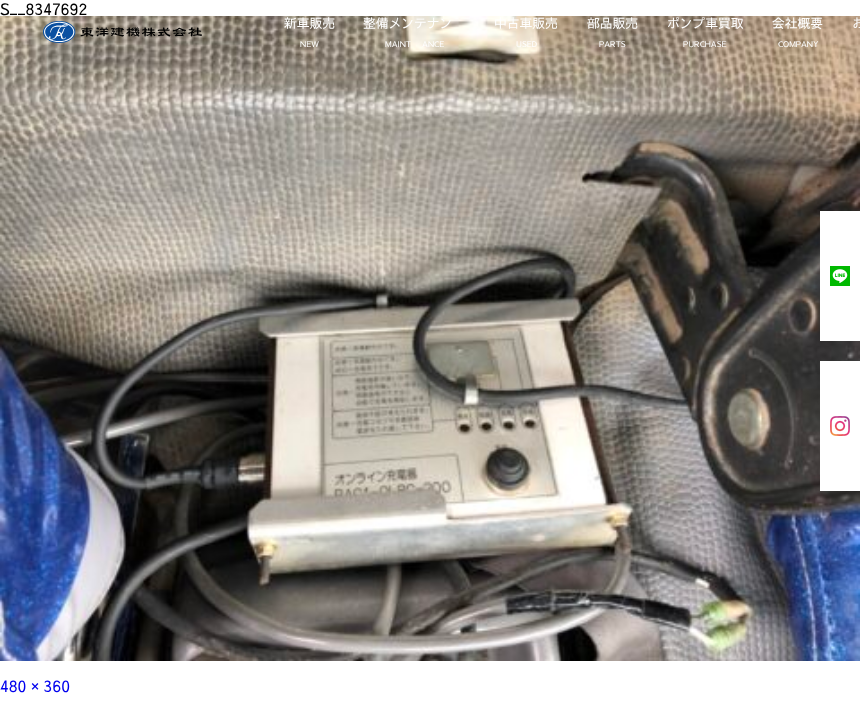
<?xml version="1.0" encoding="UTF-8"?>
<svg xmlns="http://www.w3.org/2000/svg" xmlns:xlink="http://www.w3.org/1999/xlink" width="860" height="701">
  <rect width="100%" height="100%" fill="#ffffff" />
  <image x="0" y="16" width="860" height="645" xlink:href="image1.png" />
  <image x="43" y="21" width="159" height="22" xlink:href="image2.png" />
  <rect x="820" y="211" width="40" height="130" fill="#ffffff" />
  <image x="830" y="266" width="20" height="20" xlink:href="image3.png" />
  <rect x="820" y="361" width="40" height="130" fill="#ffffff" />
  <image x="830" y="416" width="20" height="20" xlink:href="image4.png" />
  <text x="0" y="15" style="font-family: Sawarabi Gothic; font-size: 16px; fill: #000000">S__8347692</text>
  <text x="0" y="692" style="font-family: Sawarabi Gothic; font-size: 16px; fill: #0000ee">480 × 360</text>
  <text x="284" y="28" style="font-family: Sawarabi Gothic; font-size: 12.75px; fill: #ffffff">新車販売</text>
  <text x="300" y="47" style="font-family: Sawarabi Gothic; font-size: 8px; fill: #ffffff">NEW</text>
  <text x="363" y="28" style="font-family: Sawarabi Gothic; font-size: 12.75px; fill: #ffffff">整備メンテナン</text>
  <text x="385" y="47" style="font-family: Sawarabi Gothic; font-size: 8px; fill: #ffffff">MAINT</text>
  <text x="422" y="47" style="font-family: Sawarabi Gothic; font-size: 8px; fill: #ffffff">ANCE</text>
  <text x="494" y="28" style="font-family: Sawarabi Gothic; font-size: 12.75px; fill: #ffffff">中古車販売</text>
  <text x="516" y="47" style="font-family: Sawarabi Gothic; font-size: 8px; fill: #ffffff">USED</text>
  <text x="587" y="28" style="font-family: Sawarabi Gothic; font-size: 12.75px; fill: #ffffff">部品販売</text>
  <text x="599" y="47" style="font-family: Sawarabi Gothic; font-size: 8px; fill: #ffffff">PARTS</text>
  <text x="667" y="28" style="font-family: Sawarabi Gothic; font-size: 12.75px; fill: #ffffff">ポンプ車買取</text>
  <text x="683" y="47" style="font-family: Sawarabi Gothic; font-size: 8px; fill: #ffffff">PURCHASE</text>
  <text x="772" y="28" style="font-family: Sawarabi Gothic; font-size: 12.75px; fill: #ffffff">会社概要</text>
  <text x="778" y="47" style="font-family: Sawarabi Gothic; font-size: 8px; fill: #ffffff">COMPANY</text>
  <text x="852" y="28" style="font-family: Sawarabi Gothic; font-size: 12.75px; fill: #ffffff">お</text>
</svg>
